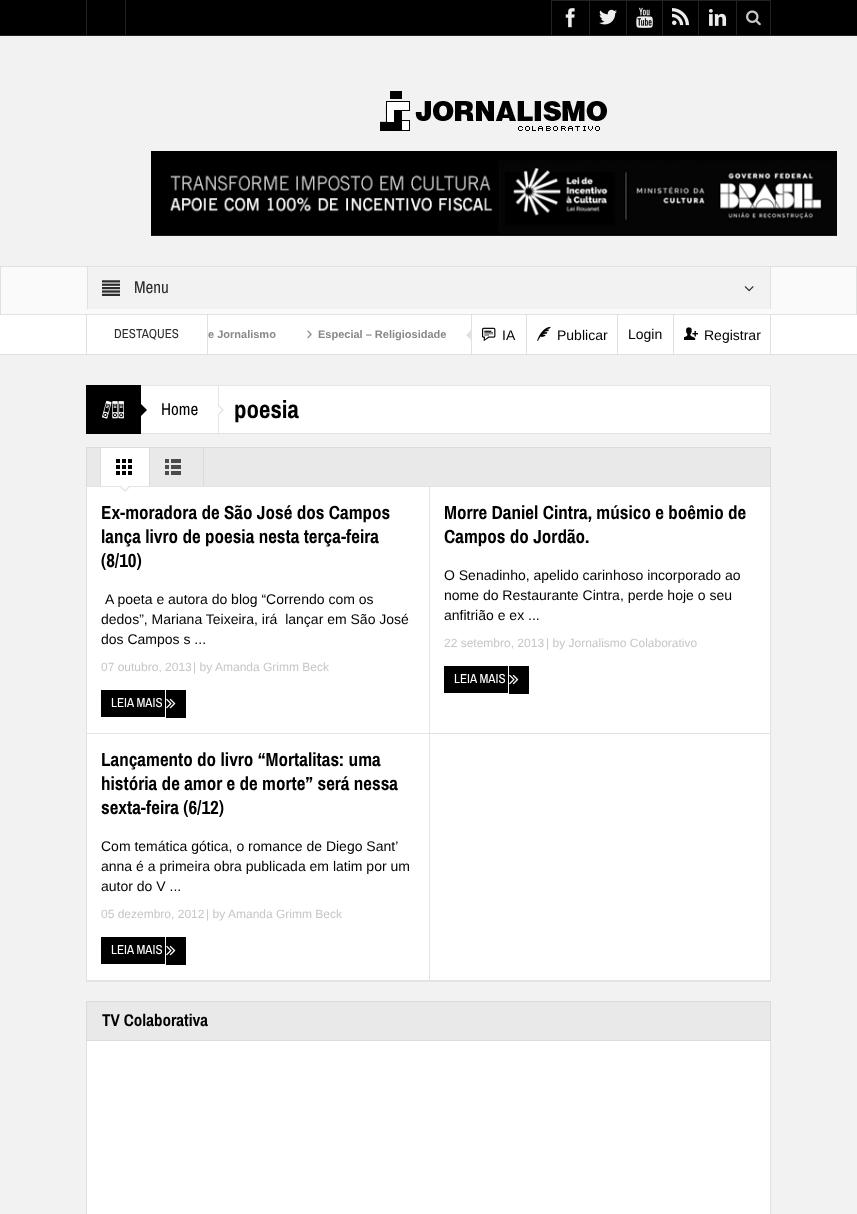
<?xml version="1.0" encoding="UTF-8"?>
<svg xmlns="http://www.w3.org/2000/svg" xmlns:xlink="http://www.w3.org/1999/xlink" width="857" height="1214">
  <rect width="100%" height="100%" fill="#f2f2f2" />
  <rect width="857" height="35" fill="#000000" />
  <rect y="35" width="857" height="1" fill="#222222" />
  <rect x="125" width="1" height="35" fill="#222222" />
  <rect x="86" width="1" height="35" fill="#222222" />
  <rect x="551" width="220" height="1" fill="#222222" />
  <rect x="551" width="1" height="35" fill="#222222" />
  <image x="565" y="8" width="10" height="20" xlink:href="image1.png" />
  <rect x="589" width="1" height="35" fill="#222222" />
  <image x="599" y="9" width="18" height="16" xlink:href="image2.png" />
  <rect x="626" width="1" height="35" fill="#222222" />
  <image x="636" y="7" width="17" height="21" xlink:href="image3.png" />
  <rect x="662" width="1" height="35" fill="#222222" />
  <image x="672" y="8" width="17" height="18" xlink:href="image4.png" />
  <rect x="698" width="1" height="35" fill="#222222" />
  <image x="709" y="9" width="18" height="17" xlink:href="image5.png" />
  <rect x="770" width="1" height="35" fill="#222222" />
  <rect x="736" width="1" height="35" fill="#222222" />
  <image x="746" y="10" width="15" height="16" xlink:href="image6.png" />
  <image x="380" y="91" width="227" height="40" xlink:href="image7.png" />
  <image x="151" y="151" width="686" height="85" xlink:href="image8.png" />
  <rect x="0.5" y="266.5" width="856" height="48" fill="#fafafa" stroke="#e1e1e1" />
  <rect x="88" y="267" width="682" height="42" fill="#f2f2f2" />
  <rect x="770" y="267" width="1" height="42" fill="#e1e1e1" />
  <rect x="87" y="267" width="1" height="42" fill="#e1e1e1" />
  <image x="102" y="280" width="18" height="16" xlink:href="image9.png" />
  <image x="744" y="286" width="10" height="6" xlink:href="image10.png" />
  <rect y="315" width="857" height="39" fill="#ffffff" />
  <rect y="354" width="857" height="1" fill="#e1e1e1" />
  <rect x="207" y="315" width="1" height="39" fill="#e1e1e1" />
  <rect x="86" y="315" width="1" height="39" fill="#e1e1e1" />
  <rect x="770" y="315" width="1" height="39" fill="#e1e1e1" />
  <image x="307" y="330" width="5" height="9" xlink:href="image11.png" />
  <rect x="471" y="315" width="1" height="39" fill="#e1e1e1" />
  <path d="M 472 329 v 12 l -6 -6 z" fill="#e1e1e1" />
  <rect x="526" y="315" width="1" height="39" fill="#e1e1e1" />
  <image x="482" y="327" width="14" height="15" xlink:href="image12.png" />
  <rect x="617" y="315" width="1" height="39" fill="#e1e1e1" />
  <image x="537" y="326" width="14" height="15" xlink:href="image13.png" />
  <rect x="673" y="315" width="1" height="39" fill="#e1e1e1" />
  <image x="684" y="327" width="14" height="13" xlink:href="image14.png" />
  <rect x="141" y="386" width="629" height="47" fill="#ffffff" />
  <rect x="141" y="385" width="630" height="1" fill="#e5e5e5" />
  <rect x="770" y="385" width="1" height="49" fill="#e5e5e5" />
  <rect x="141" y="433" width="630" height="1" fill="#e1e1e1" />
  <rect x="86" y="385" width="55" height="49" fill="#000000" />
  <image x="102" y="400" width="22" height="19" xlink:href="image15.png" />
  <path d="M 141 416 v -12 l 6 6 z" fill="#000000" />
  <rect x="218" y="386" width="1" height="47" fill="#e5e5e5" />
  <path d="M 218 416 v -12 l 6 6 z" fill="#e5e5e5" />
  <path d="M 218 414 v -8 l 4 4 z" fill="#ffffff" />
  <rect x="86" y="981" width="685" height="1" fill="#e5e5e5" />
  <rect x="87" y="487" width="683" height="493" fill="#ffffff" />
  <rect x="86.5" y="447.5" width="684" height="533" fill="none" stroke="#e1e1e1" />
  <rect x="86.5" y="447.5" width="684" height="39" fill="#e9e9e9" stroke="#dbdbdb" />
  <rect x="101" y="448" width="48" height="38" fill="#ffffff" />
  <rect x="100" y="448" width="1" height="38" fill="#dbdbdb" />
  <image x="116" y="459" width="16" height="16" xlink:href="image16.png" />
  <rect x="87" y="486" width="683" height="1" fill="#e4e4e4" />
  <path d="M 119 486 h 12 l -6 6 z" fill="#e5e5e5" />
  <path d="M 121 486 h 8 l -4 4 z" fill="#ffffff" />
  <rect x="203" y="448" width="1" height="38" fill="#dbdbdb" />
  <rect x="149" y="448" width="1" height="38" fill="#dbdbdb" />
  <image x="165" y="459" width="16" height="16" xlink:href="image17.png" />
  <rect x="101" y="690" width="64" height="27" fill="#000000" />
  <rect x="166" y="690" width="20" height="28" fill="#000000" />
  <image x="166" y="698" width="10" height="11" xlink:href="image18.png" />
  <rect x="429" y="486" width="1" height="494" fill="#e4e4e4" />
  <rect x="444" y="666" width="64" height="27" fill="#000000" />
  <rect x="509" y="666" width="20" height="28" fill="#000000" />
  <image x="509" y="674" width="10" height="11" xlink:href="image18.png" />
  <rect x="87" y="733" width="342" height="1" fill="#e4e4e4" />
  <rect x="429" y="733" width="341" height="1" fill="#e1e1e1" />
  <rect x="101" y="937" width="64" height="27" fill="#000000" />
  <rect x="166" y="937" width="20" height="28" fill="#000000" />
  <image x="166" y="945" width="10" height="11" xlink:href="image18.png" />
  <rect x="87" y="1041" width="683" height="173" fill="#ffffff" />
  <rect x="86.5" y="1001.5" width="684" height="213" fill="none" stroke="#e1e1e1" />
  <rect x="86.5" y="1001.5" width="684" height="39" fill="#e9e9e9" stroke="#dbdbdb" />
  <text x="134" y="293" style="font-family: Archivo Narrow; font-size: 17px; fill: #2d2d2d">Menu</text>
  <text x="114" y="338" style="font-family: Archivo Narrow; font-size: 13px; fill: #2d2d2d">DESTAQUES</text>
  <text x="208" y="338" style="font-family: Liberation Sans; font-size: 11px; font-weight: bold; fill: #888888">e Jornalismo</text>
  <text x="318" y="338" style="font-family: Liberation Sans; font-size: 11px; font-weight: bold; fill: #888888">Especial – Religiosidade</text>
  <text x="502" y="340" style="font-family: Liberation Sans; font-size: 14px; fill: #000000">IA</text>
  <text x="557" y="340" style="font-family: Liberation Sans; font-size: 14px; fill: #000000">Publicar</text>
  <text x="628" y="339" style="font-family: Liberation Sans; font-size: 14px; fill: #000000">Login</text>
  <text x="704" y="340" style="font-family: Liberation Sans; font-size: 14px; fill: #000000">Registrar</text>
  <text x="161" y="415" style="font-family: Archivo Narrow; font-size: 17px; fill: #000000">Home</text>
  <text x="234" y="418" style="font-family: Archivo Narrow; font-size: 25px; font-weight: bold; fill: #000000">poesia</text>
  <text x="101" y="519" style="font-family: Archivo Narrow; font-size: 19px; font-weight: bold; fill: #000000">Ex-moradora de São José dos Campos</text>
  <text x="101" y="543" style="font-family: Archivo Narrow; font-size: 19px; font-weight: bold; fill: #000000">lança livro de poesia nesta terça-feira</text>
  <text x="101" y="567" style="font-family: Archivo Narrow; font-size: 19px; font-weight: bold; fill: #000000">(8/10)</text>
  <text x="105" y="604" style="font-family: Liberation Sans; font-size: 14px; fill: #000000">A poeta e autora do blog “Correndo com os</text>
  <text x="101" y="624" style="font-family: Liberation Sans; font-size: 14px; fill: #000000" xml:space="preserve">dedos”, Mariana Teixeira, irá  lançar em São José</text>
  <text x="101" y="644" style="font-family: Liberation Sans; font-size: 14px; fill: #000000">dos Campos s ...</text>
  <text x="101" y="671" style="font-family: Liberation Sans; font-size: 12px; fill: #c6c6c6">07 outubro, 2013</text>
  <text x="193" y="671" style="font-family: Liberation Sans; font-size: 12px; fill: #c6c6c6">| by</text>
  <text x="215" y="671" style="font-family: Liberation Sans; font-size: 12px; fill: #c6c6c6">Amanda Grimm Beck</text>
  <text x="111" y="707" style="font-family: Archivo Narrow; font-size: 13px; fill: #ffffff">LEIA MAIS</text>
  <text x="444" y="519" style="font-family: Archivo Narrow; font-size: 19px; font-weight: bold; fill: #000000">Morre Daniel Cintra, músico e boêmio de</text>
  <text x="444" y="543" style="font-family: Archivo Narrow; font-size: 19px; font-weight: bold; fill: #000000">Campos do Jordão.</text>
  <text x="444" y="580" style="font-family: Liberation Sans; font-size: 14px; fill: #000000">O Senadinho, apelido carinhoso incorporado ao</text>
  <text x="444" y="600" style="font-family: Liberation Sans; font-size: 14px; fill: #000000">nome do Restaurante Cintra, perde hoje o seu</text>
  <text x="444" y="620" style="font-family: Liberation Sans; font-size: 14px; fill: #000000">anfitrião e ex ...</text>
  <text x="444" y="647" style="font-family: Liberation Sans; font-size: 12px; fill: #c6c6c6">22 setembro, 2013</text>
  <text x="546" y="647" style="font-family: Liberation Sans; font-size: 12px; fill: #c6c6c6">| by Jornalismo Colaborativo</text>
  <text x="454" y="683" style="font-family: Archivo Narrow; font-size: 13px; fill: #ffffff">LEIA MAIS</text>
  <text x="101" y="766" style="font-family: Archivo Narrow; font-size: 19px; font-weight: bold; fill: #000000">Lançamento do livro “Mortalitas: uma</text>
  <text x="101" y="790" style="font-family: Archivo Narrow; font-size: 19px; font-weight: bold; fill: #000000">história de amor e de morte” será nessa</text>
  <text x="101" y="814" style="font-family: Archivo Narrow; font-size: 19px; font-weight: bold; fill: #000000">sexta-feira (6/12)</text>
  <text x="101" y="851" style="font-family: Liberation Sans; font-size: 14px; fill: #000000">Com temática gótica, o romance de Diego Sant’</text>
  <text x="101" y="871" style="font-family: Liberation Sans; font-size: 14px; fill: #000000">anna é a primeira obra publicada em latim por um</text>
  <text x="101" y="891" style="font-family: Liberation Sans; font-size: 14px; fill: #000000">autor do V ...</text>
  <text x="101" y="918" style="font-family: Liberation Sans; font-size: 12px; fill: #c6c6c6">05 dezembro, 2012</text>
  <text x="206" y="918" style="font-family: Liberation Sans; font-size: 12px; fill: #c6c6c6">| by</text>
  <text x="228" y="918" style="font-family: Liberation Sans; font-size: 12px; fill: #c6c6c6">Amanda Grimm Beck</text>
  <text x="111" y="954" style="font-family: Archivo Narrow; font-size: 13px; fill: #ffffff">LEIA MAIS</text>
  <text x="102" y="1026" style="font-family: Archivo Narrow; font-size: 17px; font-weight: bold; fill: #000000">TV Colaborativa</text>
</svg>
